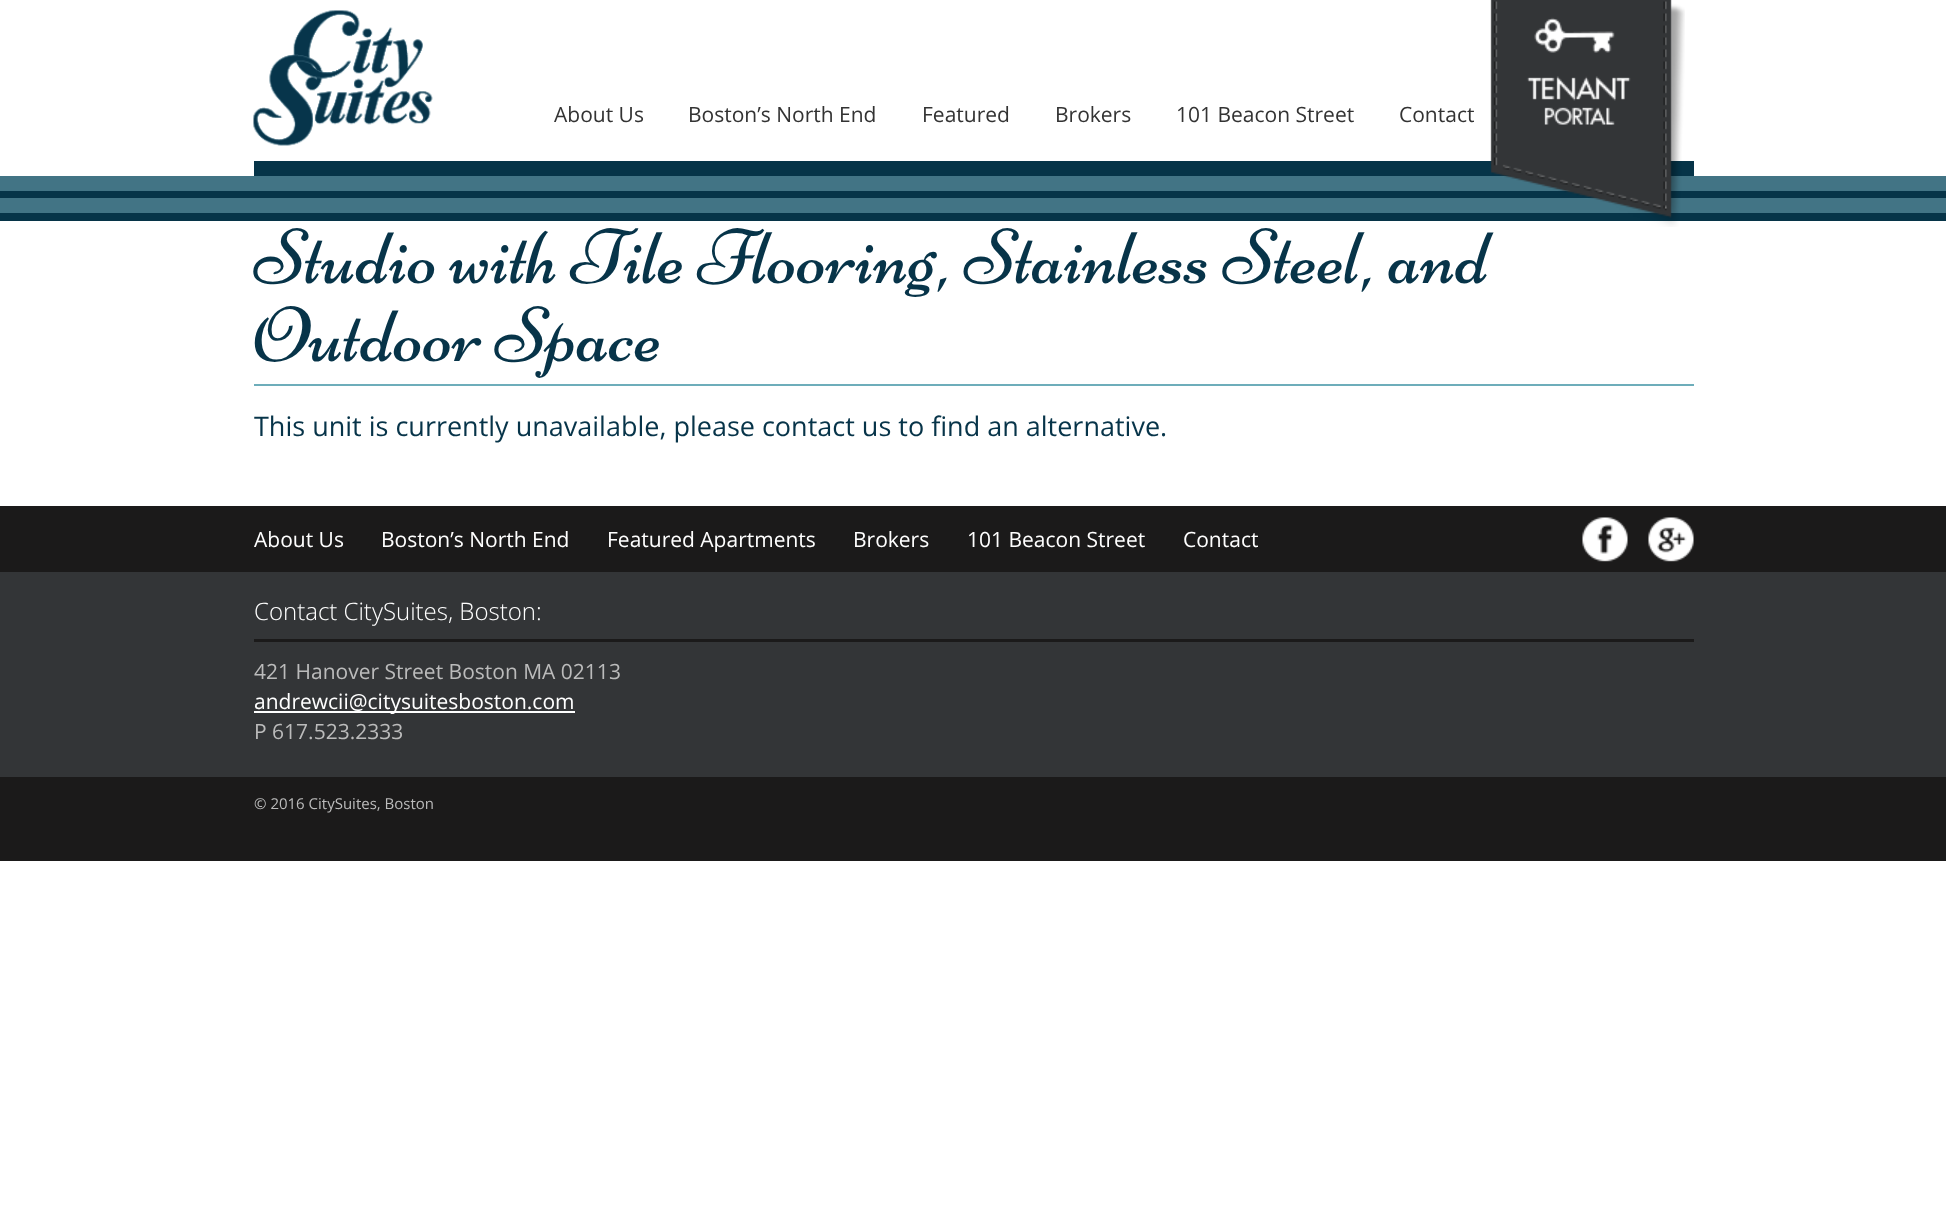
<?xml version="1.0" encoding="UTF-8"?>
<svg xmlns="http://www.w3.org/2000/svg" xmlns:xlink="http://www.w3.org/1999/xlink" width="1946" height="1231">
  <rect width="100%" height="100%" fill="#ffffff" />
  <rect y="176" width="1946" height="15" fill="#427485" />
  <rect x="254" y="161" width="1440" height="15" fill="#063448" />
  <image x="253" y="10" width="180" height="136" xlink:href="image1.png" />
  <rect y="198" width="1946" height="15" fill="#427485" />
  <rect y="191" width="1946" height="7" fill="#063448" />
  <rect y="213" width="1946" height="8" fill="#063448" />
  <image x="1490" y="0" width="195" height="227" xlink:href="image2.png" />
  <rect x="254" y="384" width="1440" height="2" fill="#6dadba" />
  <rect y="572" width="1946" height="205" fill="#333537" />
  <rect y="506" width="1946" height="66" fill="#1b1a1a" />
  <image x="1582" y="517" width="46" height="45" xlink:href="image3.png" />
  <image x="1648" y="517" width="46" height="45" xlink:href="image4.png" />
  <rect x="254" y="639" width="1440" height="3" fill="#1b1a1a" />
  <rect x="254" y="711" width="321" height="2" fill="#ffffff" />
  <rect y="777" width="1946" height="84" fill="#1b1a1a" />
  <text x="554" y="122" style="font-family: Open Sans; font-size: 21px; fill: #333333">About Us</text>
  <text x="688" y="122" style="font-family: Open Sans; font-size: 21px; fill: #333333">Boston’s North End</text>
  <text x="922" y="122" style="font-family: Open Sans; font-size: 21px; fill: #333333">Featured</text>
  <text x="1055" y="122" style="font-family: Open Sans; font-size: 21px; fill: #333333">Brokers</text>
  <text x="1176" y="122" style="font-family: Open Sans; font-size: 21px; fill: #333333">101 Beacon Street</text>
  <text x="1399" y="122" style="font-family: Open Sans; font-size: 21px; fill: #333333">Contact</text>
  <text x="254" y="283" style="font-family: Niconne; font-size: 78px; fill: #073449">Studio with Tile Flooring, Stainless Steel, and</text>
  <text x="254" y="361" style="font-family: Niconne; font-size: 78px; fill: #073449">Outdoor Space</text>
  <text x="254" y="436" style="font-family: Open Sans; font-size: 27px; fill: #073449">This unit is currently unavailable, please contact us to find an alternative.</text>
  <text x="254" y="547" style="font-family: Open Sans; font-size: 21px; fill: #ffffff">About Us</text>
  <text x="381" y="547" style="font-family: Open Sans; font-size: 21px; fill: #ffffff">Boston’s North End</text>
  <text x="607" y="547" style="font-family: Open Sans; font-size: 21px; fill: #ffffff">Featured Apartments</text>
  <text x="853" y="547" style="font-family: Open Sans; font-size: 21px; fill: #ffffff">Brokers</text>
  <text x="967" y="547" style="font-family: Open Sans; font-size: 21px; fill: #ffffff">101 Beacon Street</text>
  <text x="1183" y="547" style="font-family: Open Sans; font-size: 21px; fill: #ffffff">Contact</text>
  <text x="254" y="620" style="font-family: Open Sans; font-size: 24px; font-weight: 300; fill: #ffffff">Contact CitySuites, Boston:</text>
  <text x="254" y="679" style="font-family: Open Sans; font-size: 21px; fill: #bbbbbb">421 Hanover Street Boston MA 02113</text>
  <text x="254" y="709" style="font-family: Open Sans; font-size: 21px; fill: #ffffff">andrewcii@citysuitesboston.com</text>
  <text x="254" y="739" style="font-family: Open Sans; font-size: 21px; fill: #bbbbbb">P 617.523.2333</text>
  <text x="254" y="809" style="font-family: Open Sans; font-size: 15px; fill: #bbbbbb">© 2016 CitySuites, Boston</text>
</svg>
